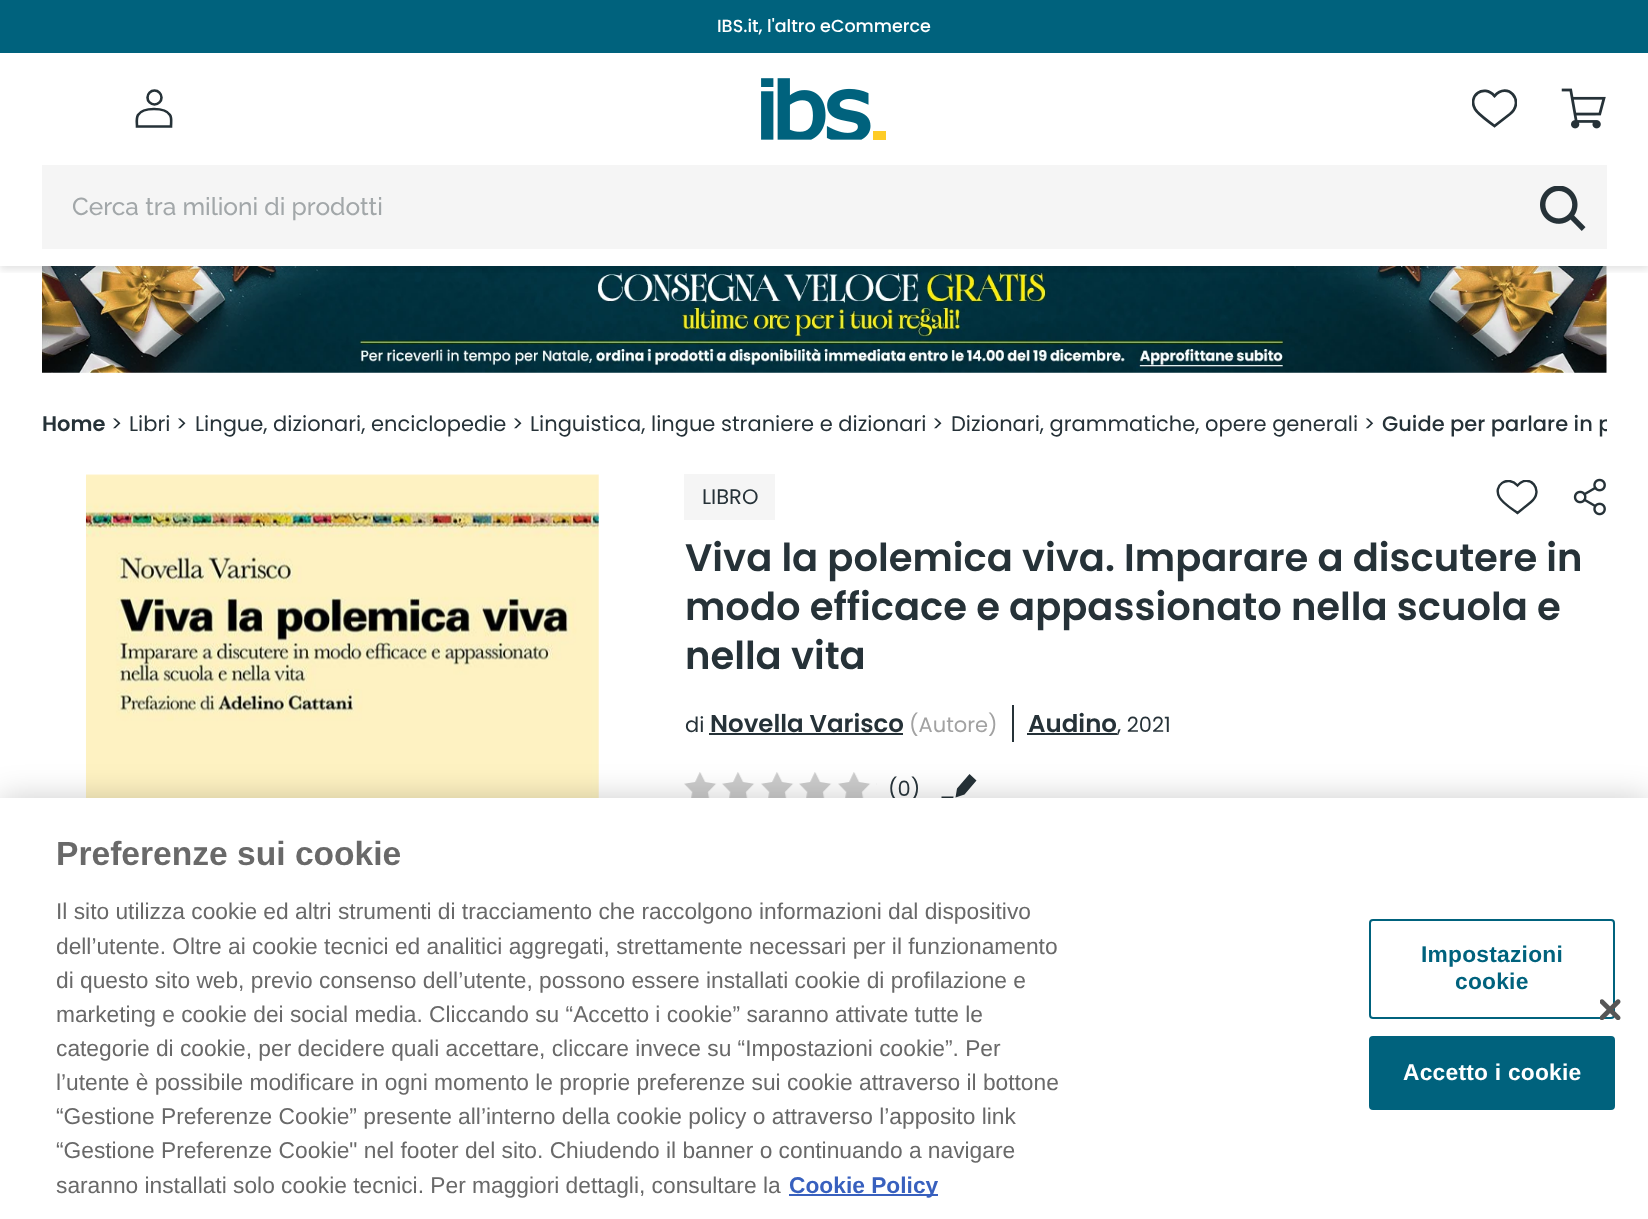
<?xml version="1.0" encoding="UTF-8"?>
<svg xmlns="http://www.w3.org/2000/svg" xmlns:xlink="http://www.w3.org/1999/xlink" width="1648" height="1219">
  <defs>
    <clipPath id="clip1"><rect x="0" y="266" width="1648" height="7" /></clipPath>
    <clipPath id="clip2"><rect x="1472" y="86" width="45" height="45" /></clipPath>
    <clipPath id="clip3"><rect x="1496" y="480" width="42" height="35" /></clipPath>
    <clipPath id="clip4"><rect x="42" y="408" width="1565" height="66" /></clipPath>
  </defs>
  <rect width="100%" height="100%" fill="#ffffff" />
  <image x="42" y="266" width="1565" height="107" xlink:href="image4.png" />
  <g clip-path="url(#clip1)">
    <rect y="4" width="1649" height="266" fill="#000000" fill-opacity="0.1" filter="blur(3.5px)" />
  </g>
  <rect width="1648" height="53" fill="#00627d" />
  <circle cx="154.5" cy="97.5" r="7" fill="none" stroke="#263238" stroke-width="2.6" />
  <path d="M 137 126.5 c 0 -4 -1 -8 1 -11.5 c 5 -8 27 -8 32 0 c 2 3 1 7.5 1 11.5 z" fill="none" stroke="#263238" stroke-width="2.6" />
  <image x="761" y="78" width="125" height="62" xlink:href="image1.png" />
  <g clip-path="url(#clip2)">
    <path d="M 1494.5 126 c -5.5 -4.5 -16 -11 -19.5 -17 c -7.5 -13 8.5 -25.5 19.5 -13 c 13 -15 31 5 15.5 18 z" fill="none" stroke="#263238" stroke-width="2.7" />
  </g>
  <image x="1561" y="88" width="45" height="41" xlink:href="image2.png" />
  <rect x="42" y="165" width="1565" height="84" fill="#f5f5f5" />
  <image x="1540" y="186" width="46" height="45" xlink:href="image3.png" />
  <image x="85" y="474" width="514" height="324" xlink:href="image5.png" />
  <rect x="684" y="474" width="91" height="46" fill="#f5f5f5" />
  <g clip-path="url(#clip3)">
    <path d="M 1517.5 513 c -5.5 -4 -15 -10 -18 -15.5 c -7 -12 8 -23 18 -12 c 11.5 -13.5 27.5 5 13.5 16.5 z" fill="none" stroke="#263238" stroke-width="2.4" />
  </g>
  <image x="1573" y="478" width="33" height="38" xlink:href="image6.png" />
  <rect x="709" y="733" width="194" height="2" fill="#263238" />
  <rect x="1012" y="705" width="2" height="37" fill="#263238" />
  <rect x="1027" y="733" width="90" height="2" fill="#263238" />
  <image x="684" y="772" width="193" height="26" xlink:href="image7.png" />
  <path d="M 969.5 774 l -12.5 14.5 l -1.5 9 l 9 -3 l 12 -14 z m -28 27 h 11.5 l 0.5 -4.5 h -12 z" fill="#263238" />
  <rect y="798" width="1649" height="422" fill="#000000" fill-opacity="0.2" filter="blur(16px)" />
  <text x="717" y="32" style="font-family: Poppins; font-size: 17.5px; font-weight: 500; fill: #ffffff">IBS.it, l'altro eCommerce</text>
  <text x="72" y="215" style="font-family: Raleway; font-size: 24.5px; font-weight: 500; fill: #a2a7a9">Cerca tra milioni di prodotti</text>
  <text x="42" y="431" style="font-family: Poppins; font-size: 21px; font-weight: 600; fill: #263238">Home</text>
  <text x="111" y="431" style="font-family: Poppins; font-size: 21px; fill: #263238">&gt;</text>
  <text x="129" y="431" style="font-family: Poppins; font-size: 21px; fill: #263238">Libri &gt;</text>
  <text x="195" y="431" style="font-family: Poppins; font-size: 21px; fill: #263238">Lingue, dizionari, enciclopedie &gt;</text>
  <text x="530" y="431" style="font-family: Poppins; font-size: 21px; fill: #263238">Linguistica, lingue straniere e dizionari &gt;</text>
  <text x="951" y="431" style="font-family: Poppins; font-size: 21px; fill: #263238">Dizionari, grammatiche, opere generali &gt;</text>
  <g clip-path="url(#clip4)">
    <text x="1382" y="431" style="font-family: Poppins; font-size: 21px; font-weight: 500; fill: #263238">Guide per parlare in p</text>
  </g>
  <text x="702" y="504" style="font-family: Poppins; font-size: 21px; fill: #263238">LIBRO</text>
  <text x="685" y="571" style="font-family: Poppins; font-size: 38.5px; font-weight: 600; fill: #263238">Viva la polemica viva. Imparare a discutere in</text>
  <text x="685" y="620" style="font-family: Poppins; font-size: 38.5px; font-weight: 600; fill: #263238">modo efficace e appassionato nella scuola e</text>
  <text x="685" y="669" style="font-family: Poppins; font-size: 38.5px; font-weight: 600; fill: #263238">nella vita</text>
  <text x="685" y="732" style="font-family: Poppins; font-size: 21px; fill: #263238">di</text>
  <text x="710" y="732" style="font-family: Poppins; font-size: 24.5px; font-weight: 600; fill: #263238">Novella Varisco</text>
  <text x="909" y="732" style="font-family: Poppins; font-size: 21px; fill: #a2a2a2">(Autore)</text>
  <text x="1028" y="732" style="font-family: Poppins; font-size: 24.5px; font-weight: 600; fill: #263238">Audino</text>
  <text x="1117" y="732" style="font-family: Poppins; font-size: 21px; fill: #263238">, 2021</text>
  <text x="888" y="796" style="font-family: Poppins; font-size: 21px; fill: #263238">(0)</text>
  <rect y="798" width="1648" height="421" fill="#ffffff" />
  <text x="56" y="865" style="font-family: Liberation Sans; font-size: 33.6px; font-weight: bold; fill: #696969">Preferenze sui cookie</text>
  <text x="56" y="919" style="font-family: Liberation Sans; font-size: 22.75px; fill: #696969">Il sito utilizza cookie ed altri strumenti di tracciamento che raccolgono informazioni dal dispositivo</text>
  <text x="56" y="954" style="font-family: Liberation Sans; font-size: 22.75px; fill: #696969">dell’utente. Oltre ai cookie tecnici ed analitici aggregati, strettamente necessari per il funzionamento</text>
  <text x="56" y="988" style="font-family: Liberation Sans; font-size: 22.75px; fill: #696969">di questo sito web, previo consenso dell’utente, possono essere installati cookie di profilazione e</text>
  <text x="56" y="1022" style="font-family: Liberation Sans; font-size: 22.75px; fill: #696969">marketing e cookie dei social media. Cliccando su “Accetto i cookie” saranno attivate tutte le</text>
  <text x="56" y="1056" style="font-family: Liberation Sans; font-size: 22.75px; fill: #696969">categorie di cookie, per decidere quali accettare, cliccare invece su “Impostazioni cookie”. Per</text>
  <text x="56" y="1090" style="font-family: Liberation Sans; font-size: 22.75px; fill: #696969">l’utente è possibile modificare in ogni momento le proprie preferenze sui cookie attraverso il bottone</text>
  <text x="56" y="1124" style="font-family: Liberation Sans; font-size: 22.75px; fill: #696969">“Gestione Preferenze Cookie” presente all’interno della cookie policy o attraverso l’apposito link</text>
  <text x="56" y="1158" style="font-family: Liberation Sans; font-size: 22.75px; fill: #696969">“Gestione Preferenze Cookie" nel footer del sito. Chiudendo il banner o continuando a navigare</text>
  <text x="56" y="1193" style="font-family: Liberation Sans; font-size: 22.75px; fill: #696969">saranno installati solo cookie tecnici. Per maggiori dettagli, consultare la</text>
  <rect x="789" y="1194" width="149" height="2" fill="#3860be" />
  <text x="789" y="1193" style="font-family: Liberation Sans; font-size: 22.75px; font-weight: bold; fill: #3860be">Cookie Policy</text>
  <rect x="1370" y="920" width="244" height="98" rx="3" fill="none" stroke="#00627d" stroke-width="2" />
  <text x="1421" y="962" style="font-family: Liberation Sans; font-size: 22.75px; font-weight: bold; letter-spacing: 0.25px; fill: #00627d">Impostazioni</text>
  <text x="1455" y="989" style="font-family: Liberation Sans; font-size: 22.75px; font-weight: bold; letter-spacing: 0.25px; fill: #00627d">cookie</text>
  <rect x="1370" y="1037" width="244" height="72" rx="3" fill="#00627d" stroke="#00627d" stroke-width="2" />
  <text x="1403" y="1080" style="font-family: Liberation Sans; font-size: 22.75px; font-weight: bold; letter-spacing: 0.25px; fill: #ffffff">Accetto i cookie</text>
  <image x="1600" y="999" width="21" height="21" xlink:href="image8.png" />
</svg>
